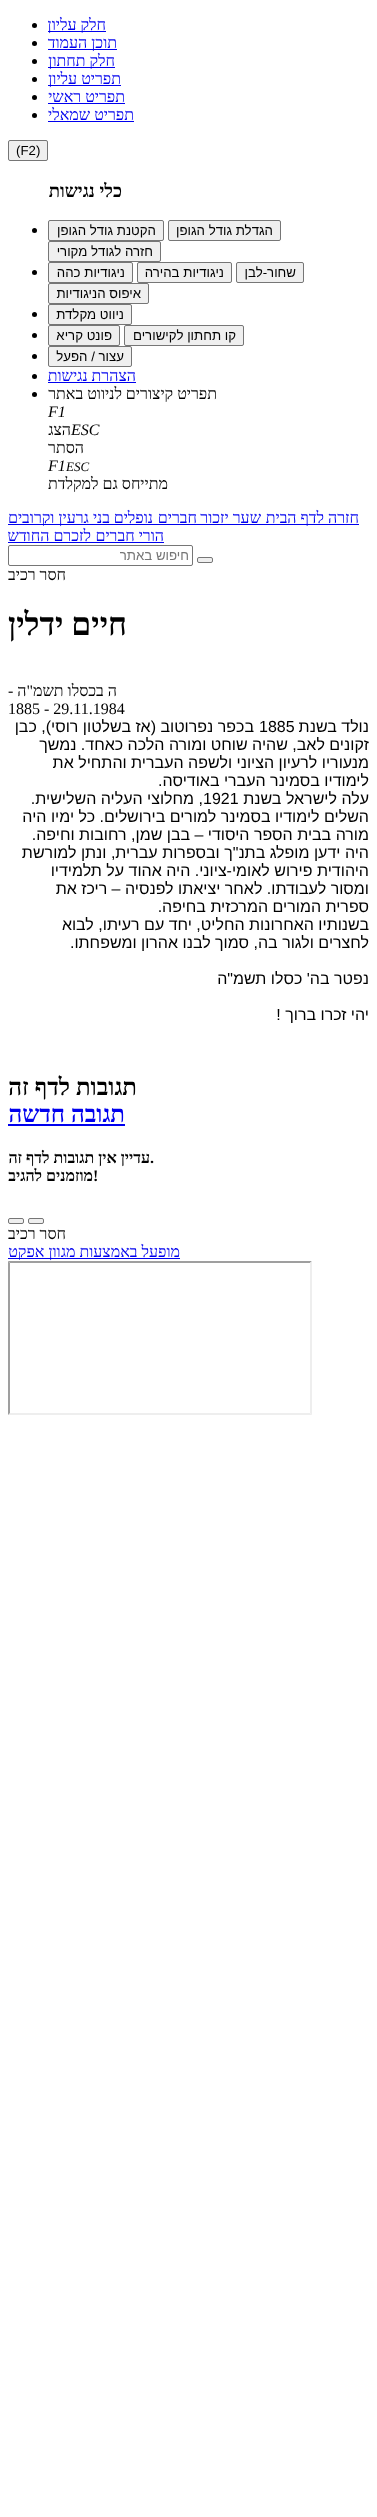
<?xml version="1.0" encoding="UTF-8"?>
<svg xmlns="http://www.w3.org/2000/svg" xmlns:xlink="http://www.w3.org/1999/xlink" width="377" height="2517">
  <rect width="100%" height="100%" fill="#ffffff" />
  <rect x="48" y="31" width="58" height="1" fill="#0000ee" />
  <circle cx="34.5" cy="25.5" r="2.5" fill="#000000" />
  <rect x="48" y="49" width="69" height="1" fill="#0000ee" />
  <circle cx="34.5" cy="43.5" r="2.5" fill="#000000" />
  <rect x="48" y="67" width="67" height="1" fill="#0000ee" />
  <circle cx="34.5" cy="61.5" r="2.5" fill="#000000" />
  <rect x="48" y="85" width="73" height="1" fill="#0000ee" />
  <circle cx="34.5" cy="79.5" r="2.5" fill="#000000" />
  <rect x="48" y="103" width="77" height="1" fill="#0000ee" />
  <circle cx="34.5" cy="97.5" r="2.5" fill="#000000" />
  <rect x="48" y="121" width="86" height="1" fill="#0000ee" />
  <circle cx="34.5" cy="115.5" r="2.5" fill="#000000" />
  <rect x="8.5" y="140.5" width="39" height="20" rx="1.5" fill="#efefef" stroke="#767676" />
  <rect x="168.5" y="220.5" width="112" height="20" rx="1.5" fill="#efefef" stroke="#767676" />
  <rect x="48.5" y="220.5" width="115" height="20" rx="1.5" fill="#efefef" stroke="#767676" />
  <circle cx="34.5" cy="230.5" r="2.5" fill="#000000" />
  <rect x="48.5" y="241.5" width="112" height="20" rx="1.5" fill="#efefef" stroke="#767676" />
  <rect x="236.5" y="262.5" width="67" height="20" rx="1.5" fill="#efefef" stroke="#767676" />
  <rect x="137.5" y="262.5" width="94" height="20" rx="1.5" fill="#efefef" stroke="#767676" />
  <rect x="48.5" y="262.5" width="84" height="20" rx="1.5" fill="#efefef" stroke="#767676" />
  <circle cx="34.5" cy="272.5" r="2.5" fill="#000000" />
  <rect x="48.5" y="283.5" width="100" height="20" rx="1.5" fill="#efefef" stroke="#767676" />
  <rect x="48.5" y="304.5" width="83" height="20" rx="1.5" fill="#efefef" stroke="#767676" />
  <circle cx="34.5" cy="314.5" r="2.5" fill="#000000" />
  <rect x="124.5" y="325.5" width="119" height="20" rx="1.5" fill="#efefef" stroke="#767676" />
  <rect x="48.5" y="325.5" width="71" height="20" rx="1.5" fill="#efefef" stroke="#767676" />
  <circle cx="34.5" cy="335.5" r="2.5" fill="#000000" />
  <rect x="48.5" y="346.5" width="83" height="20" rx="1.5" fill="#efefef" stroke="#767676" />
  <circle cx="34.5" cy="356.5" r="2.5" fill="#000000" />
  <rect x="48" y="382" width="88" height="1" fill="#0000ee" />
  <circle cx="34.5" cy="376.5" r="2.5" fill="#000000" />
  <circle cx="34.5" cy="394.5" r="2.5" fill="#000000" />
  <rect x="8" y="524" width="351" height="1" fill="#0000ee" />
  <rect x="8" y="542" width="156" height="1" fill="#0000ee" />
  <rect x="197.5" y="557.5" width="15" height="5" rx="1.5" fill="#efefef" stroke="#767676" />
  <rect x="8.5" y="545.5" width="184" height="20" rx="1.5" fill="none" stroke="#767676" />
  <rect x="8" y="1124" width="117" height="2" fill="#0000ee" />
  <rect x="28.5" y="1218.5" width="15" height="5" rx="1.5" fill="#efefef" stroke="#767676" />
  <rect x="8.5" y="1218.5" width="15" height="5" rx="1.5" fill="#efefef" stroke="#767676" />
  <rect x="8" y="1258" width="172" height="1" fill="#0000ee" />
  <path d="M 8 1261 h 304 l -2 2 h -300 z" fill="#9f9f9f" />
  <path d="M 312 1261 v 154 l -2 -2 v -150 z" fill="#eeeeee" />
  <path d="M 312 1415 h -304 l 2 -2 h 300 z" fill="#eeeeee" />
  <path d="M 8 1415 v -154 l 2 2 v 150 z" fill="#9f9f9f" />
  <text x="106" y="30" style="font-family: Liberation Serif; font-size: 16px; direction: rtl; fill: #0000ee">חלק עליון</text>
  <text x="117" y="48" style="font-family: Liberation Serif; font-size: 16px; direction: rtl; fill: #0000ee">תוכן העמוד</text>
  <text x="115" y="66" style="font-family: Liberation Serif; font-size: 16px; direction: rtl; fill: #0000ee">חלק תחתון</text>
  <text x="121" y="84" style="font-family: Liberation Serif; font-size: 16px; direction: rtl; fill: #0000ee">תפריט עליון</text>
  <text x="125" y="102" style="font-family: Liberation Serif; font-size: 16px; direction: rtl; fill: #0000ee">תפריט ראשי</text>
  <text x="134" y="120" style="font-family: Liberation Serif; font-size: 16px; direction: rtl; fill: #0000ee">תפריט שמאלי</text>
  <text x="16" y="155" style="font-family: Liberation Sans; font-size: 13.25px; fill: #000000">(F2)</text>
  <text x="122" y="197" style="font-family: Liberation Serif; font-size: 18.5px; font-weight: bold; direction: rtl; fill: #000000">כלי נגישות</text>
  <text x="273" y="235" style="font-family: Liberation Sans; font-size: 13.25px; direction: rtl; fill: #000000">הגדלת גודל הגופן</text>
  <text x="156" y="235" style="font-family: Liberation Sans; font-size: 13.25px; direction: rtl; fill: #000000">הקטנת גודל הגופן</text>
  <text x="153" y="256" style="font-family: Liberation Sans; font-size: 13.25px; direction: rtl; fill: #000000">חזרה לגודל מקורי</text>
  <text x="296" y="277" style="font-family: Liberation Sans; font-size: 13.25px; direction: rtl; fill: #000000">שחור-לבן</text>
  <text x="224" y="277" style="font-family: Liberation Sans; font-size: 13.25px; direction: rtl; fill: #000000">ניגודיות בהירה</text>
  <text x="125" y="277" style="font-family: Liberation Sans; font-size: 13.25px; direction: rtl; fill: #000000">ניגודיות כהה</text>
  <text x="141" y="298" style="font-family: Liberation Sans; font-size: 13.25px; direction: rtl; fill: #000000">איפוס הניגודיות</text>
  <text x="124" y="319" style="font-family: Liberation Sans; font-size: 13.25px; direction: rtl; fill: #000000">ניווט מקלדת</text>
  <text x="236" y="340" style="font-family: Liberation Sans; font-size: 13.25px; direction: rtl; fill: #000000">קו תחתון לקישורים</text>
  <text x="112" y="340" style="font-family: Liberation Sans; font-size: 13.25px; direction: rtl; fill: #000000">פונט קריא</text>
  <text x="124" y="361" style="font-family: Liberation Sans; font-size: 13.25px; direction: rtl; fill: #000000">עצור / הפעל</text>
  <text x="136" y="381" style="font-family: Liberation Serif; font-size: 16px; direction: rtl; fill: #0000ee">הצהרת נגישות</text>
  <text x="217" y="399" style="font-family: Liberation Serif; font-size: 16px; direction: rtl; fill: #000000">תפריט קיצורים לניווט באתר</text>
  <text x="48" y="417" style="font-family: Liberation Serif; font-size: 16px; font-style: italic; fill: #000000">F1</text>
  <text x="71" y="435" style="font-family: Liberation Serif; font-size: 16px; font-style: italic; fill: #000000">ESC</text>
  <text x="71" y="435" style="font-family: Liberation Serif; font-size: 16px; direction: rtl; fill: #000000">הצג</text>
  <text x="84" y="453" style="font-family: Liberation Serif; font-size: 16px; direction: rtl; fill: #000000">הסתר</text>
  <text x="66" y="471" style="font-family: Liberation Serif; font-size: 13px; font-style: italic; fill: #000000">ESC</text>
  <text x="48" y="471" style="font-family: Liberation Serif; font-size: 16px; font-style: italic; fill: #000000">F1</text>
  <text x="168" y="489" style="font-family: Liberation Serif; font-size: 16px; direction: rtl; fill: #000000">מתייחס גם למקלדת</text>
  <text x="359" y="523" style="font-family: Liberation Serif; font-size: 16px; direction: rtl; fill: #0000ee">חזרה לדף הבית</text>
  <text x="261" y="523" style="font-family: Liberation Serif; font-size: 16px; direction: rtl; fill: #0000ee">שער יזכור</text>
  <text x="197" y="523" style="font-family: Liberation Serif; font-size: 16px; direction: rtl; fill: #0000ee">חברים</text>
  <text x="153" y="523" style="font-family: Liberation Serif; font-size: 16px; direction: rtl; fill: #0000ee">נופלים</text>
  <text x="110" y="523" style="font-family: Liberation Serif; font-size: 16px; direction: rtl; fill: #0000ee">בני גרעין וקרובים</text>
  <text x="164" y="541" style="font-family: Liberation Serif; font-size: 16px; direction: rtl; fill: #0000ee">הורי חברים</text>
  <text x="91" y="541" style="font-family: Liberation Serif; font-size: 16px; direction: rtl; fill: #0000ee">לזכרם החודש</text>
  <text x="189" y="560" style="font-family: Liberation Sans; font-size: 13.25px; direction: rtl; fill: #757575">חיפוש באתר</text>
  <text x="66" y="580" style="font-family: Liberation Serif; font-size: 16px; direction: rtl; fill: #000000">חסר רכיב</text>
  <text x="127" y="635" style="font-family: Liberation Serif; font-size: 32px; font-weight: bold; direction: rtl; fill: #000000">חיים ידלין</text>
  <text x="117" y="696" style="font-family: Liberation Serif; font-size: 16px; direction: rtl; fill: #000000">ה בכסלו תשמ"ה</text>
  <text x="8" y="696" style="font-family: Liberation Serif; font-size: 16px; fill: #000000">-</text>
  <text x="8" y="714" style="font-family: Liberation Serif; font-size: 16px; fill: #000000">1885 - 29.11.1984</text>
  <text x="369" y="732" style="font-family: Liberation Sans; font-size: 16px; direction: rtl; fill: #000000">נולד בשנת</text>
  <text x="259" y="732" style="font-family: Liberation Sans; font-size: 16px; fill: #000000">1885</text>
  <text x="254" y="732" style="font-family: Liberation Sans; font-size: 16px; direction: rtl; fill: #000000">בכפר נפרוטוב (אז בשלטון רוסי), כבן</text>
  <text x="369" y="750" style="font-family: Liberation Sans; font-size: 16px; direction: rtl; fill: #000000">זקונים לאב, שהיה שוחט ומורה הלכה כאחד. נמשך</text>
  <text x="369" y="768" style="font-family: Liberation Sans; font-size: 16px; direction: rtl; fill: #000000">מנעוריו לרעיון הציוני ולשפה העברית והתחיל את</text>
  <text x="369" y="786" style="font-family: Liberation Sans; font-size: 16px; direction: rtl; fill: #000000">לימודיו בסמינר העברי באודיסה.</text>
  <text x="369" y="804" style="font-family: Liberation Sans; font-size: 16px; direction: rtl; fill: #000000">עלה לישראל בשנת</text>
  <text x="203" y="804" style="font-family: Liberation Sans; font-size: 16px; fill: #000000">1921</text>
  <text x="203" y="804" style="font-family: Liberation Sans; font-size: 16px; direction: rtl; fill: #000000">, מחלוצי העליה השלישית.</text>
  <text x="369" y="822" style="font-family: Liberation Sans; font-size: 16px; direction: rtl; fill: #000000">השלים לימודיו בסמינר למורים בירושלים. כל ימיו היה</text>
  <text x="369" y="840" style="font-family: Liberation Sans; font-size: 16px; direction: rtl; fill: #000000">מורה בבית הספר היסודי – בבן שמן, רחובות וחיפה.</text>
  <text x="369" y="858" style="font-family: Liberation Sans; font-size: 16px; direction: rtl; fill: #000000">היה ידען מופלג בתנ"ך ובספרות עברית, ונתן למורשת</text>
  <text x="369" y="876" style="font-family: Liberation Sans; font-size: 16px; direction: rtl; fill: #000000">היהודית פירוש לאומי-ציוני. היה אהוד על תלמידיו</text>
  <text x="369" y="894" style="font-family: Liberation Sans; font-size: 16px; direction: rtl; fill: #000000">ומסור לעבודתו. לאחר יציאתו לפנסיה – ריכז את</text>
  <text x="369" y="912" style="font-family: Liberation Sans; font-size: 16px; direction: rtl; fill: #000000">ספרית המורים המרכזית בחיפה.</text>
  <text x="369" y="930" style="font-family: Liberation Sans; font-size: 16px; direction: rtl; fill: #000000">בשנותיו האחרונות החליט, יחד עם רעיתו, לבוא</text>
  <text x="369" y="948" style="font-family: Liberation Sans; font-size: 16px; direction: rtl; fill: #000000">לחצרים ולגור בה, סמוך לבנו אהרון ומשפחתו.</text>
  <text x="369" y="984" style="font-family: Liberation Sans; font-size: 16px; direction: rtl; fill: #000000">נפטר בה' כסלו תשמ"ה</text>
  <text x="369" y="1020" style="font-family: Liberation Sans; font-size: 16px; direction: rtl; fill: #000000">יהי זכרו ברוך !</text>
  <text x="137" y="1095" style="font-family: Liberation Serif; font-size: 24px; font-weight: bold; direction: rtl; fill: #000000">תגובות לדף זה</text>
  <text x="125" y="1122" style="font-family: Liberation Serif; font-size: 24px; font-weight: bold; direction: rtl; fill: #0000ee">תגובה חדשה</text>
  <text x="150" y="1163" style="font-family: Liberation Serif; font-size: 16px; font-weight: bold; fill: #000000">.</text>
  <text x="150" y="1163" style="font-family: Liberation Serif; font-size: 16px; font-weight: bold; direction: rtl; fill: #000000">עדיין אין תגובות לדף זה</text>
  <text x="93" y="1181" style="font-family: Liberation Serif; font-size: 16px; font-weight: bold; fill: #000000">!</text>
  <text x="93" y="1181" style="font-family: Liberation Serif; font-size: 16px; font-weight: bold; direction: rtl; fill: #000000">מוזמנים להגיב</text>
  <text x="66" y="1239" style="font-family: Liberation Serif; font-size: 16px; direction: rtl; fill: #000000">חסר רכיב</text>
  <text x="180" y="1257" style="font-family: Liberation Serif; font-size: 16px; direction: rtl; fill: #0000ee">מופעל באמצעות מגוון אפקט</text>
</svg>
